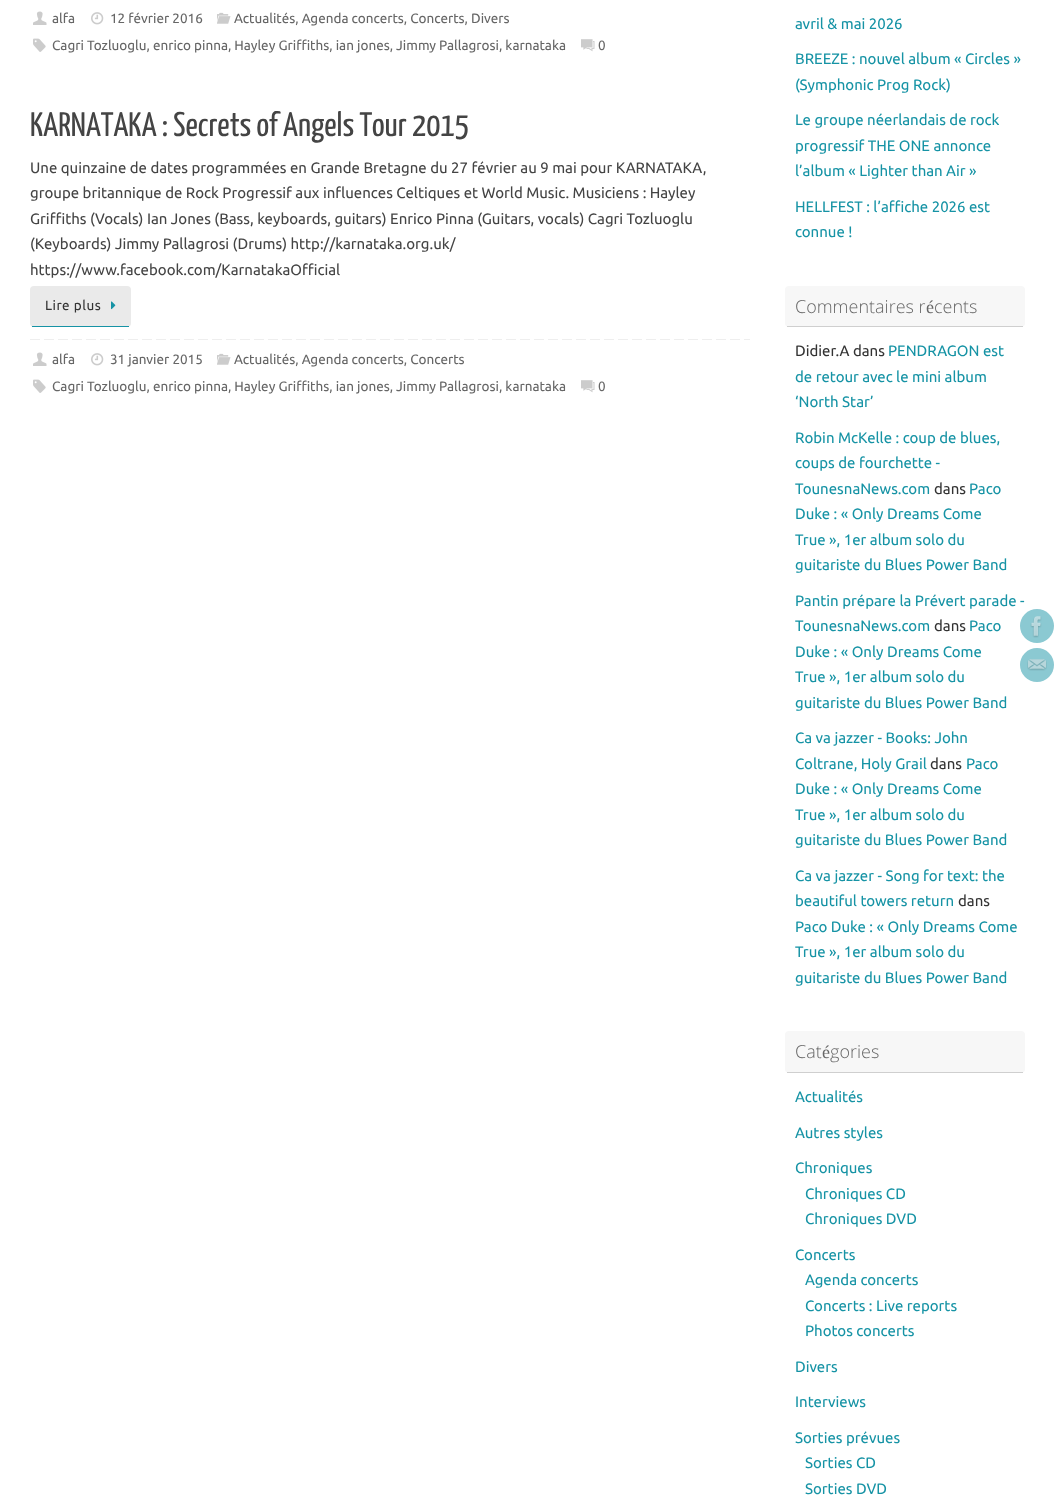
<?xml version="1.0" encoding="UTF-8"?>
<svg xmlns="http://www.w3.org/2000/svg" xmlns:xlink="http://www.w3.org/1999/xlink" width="1060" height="1510">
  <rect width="100%" height="100%" fill="#ffffff" />
  <image x="33" y="11" width="14" height="14" xlink:href="image1.png" />
  <image x="91" y="12" width="13" height="13" xlink:href="image2.png" />
  <image x="217" y="12" width="14" height="12" xlink:href="image3.png" />
  <image x="33" y="38" width="13" height="14" xlink:href="image4.png" />
  <image x="581" y="39" width="14" height="13" xlink:href="image5.png" />
  <rect x="30" y="286" width="101" height="41" rx="4" fill="#eaeaea" />
  <rect x="32" y="326" width="97" height="1" fill="#1693a5" />
  <image x="111" y="301" width="5" height="9" xlink:href="image6.png" />
  <image x="30" y="339" width="720" height="1" xlink:href="image7.png" />
  <image x="33" y="352" width="14" height="14" xlink:href="image1.png" />
  <image x="91" y="353" width="13" height="13" xlink:href="image2.png" />
  <image x="217" y="353" width="14" height="12" xlink:href="image3.png" />
  <image x="33" y="379" width="13" height="14" xlink:href="image4.png" />
  <image x="581" y="380" width="14" height="13" xlink:href="image5.png" />
  <rect x="785" y="286" width="240" height="41" rx="4" fill="#f7f7f7" />
  <rect x="787" y="326" width="236" height="1" fill="#cfcfcf" />
  <rect x="785" y="1031" width="240" height="42" rx="4" fill="#f7f7f7" />
  <rect x="787" y="1072" width="236" height="1" fill="#cfcfcf" />
  <circle cx="1037" cy="626" r="17" fill="#8bc9d2" />
  <image x="1030" y="616" width="12" height="22" xlink:href="image8.png" />
  <circle cx="1037" cy="665" r="17" fill="#8bc9d2" />
  <image x="1027" y="659" width="20" height="12" xlink:href="image9.png" />
  <text x="52" y="23" style="font-family: Ubuntu; font-size: 13.5px; fill: #666666">alfa</text>
  <text x="110" y="23" style="font-family: Ubuntu; font-size: 13.5px; fill: #666666">12 février 2016</text>
  <text x="234" y="23" style="font-family: Ubuntu; font-size: 13.5px; fill: #666666">Actualités, Agenda concerts, Concerts, Divers</text>
  <text x="52" y="50" style="font-family: Ubuntu; font-size: 13.5px; fill: #666666">Cagri Tozluoglu, enrico pinna, Hayley Griffiths, ian jones, Jimmy Pallagrosi, karnataka</text>
  <text x="598" y="50" style="font-family: Ubuntu; font-size: 13.5px; fill: #666666">0</text>
  <text x="30" y="136" style="font-family: Yanone Kaffeesatz; font-size: 34px; fill: #444444">KARNATAKA : Secrets of Angels Tour 2015</text>
  <text x="30" y="173" style="font-family: Ubuntu; font-size: 15px; fill: #444444">Une quinzaine de dates programmées en Grande Bretagne du 27 février au 9 mai pour KARNATAKA,</text>
  <text x="30" y="198" style="font-family: Ubuntu; font-size: 15px; fill: #444444">groupe britannique de Rock Progressif aux influences Celtiques et World Music. Musiciens : Hayley</text>
  <text x="30" y="224" style="font-family: Ubuntu; font-size: 15px; fill: #444444">Griffiths (Vocals) Ian Jones (Bass, keyboards, guitars) Enrico Pinna (Guitars, vocals) Cagri Tozluoglu</text>
  <text x="30" y="249" style="font-family: Ubuntu; font-size: 15px; fill: #444444">(Keyboards) Jimmy Pallagrosi (Drums) http://karnataka.org.uk/</text>
  <text x="30" y="275" style="font-family: Ubuntu; font-size: 15px; fill: #444444">https://www.facebook.com/KarnatakaOfficial</text>
  <text x="45" y="310" style="font-family: Ubuntu; font-size: 13.5px; letter-spacing: 0.5px; fill: #333333">Lire plus</text>
  <text x="52" y="364" style="font-family: Ubuntu; font-size: 13.5px; fill: #666666">alfa</text>
  <text x="110" y="364" style="font-family: Ubuntu; font-size: 13.5px; fill: #666666">31 janvier 2015</text>
  <text x="234" y="364" style="font-family: Ubuntu; font-size: 13.5px; fill: #666666">Actualités, Agenda concerts, Concerts</text>
  <text x="52" y="391" style="font-family: Ubuntu; font-size: 13.5px; fill: #666666">Cagri Tozluoglu, enrico pinna, Hayley Griffiths, ian jones, Jimmy Pallagrosi, karnataka</text>
  <text x="598" y="391" style="font-family: Ubuntu; font-size: 13.5px; fill: #666666">0</text>
  <text x="795" y="29" style="font-family: Ubuntu; font-size: 15px; fill: #1693a5">avril &amp; mai 2026</text>
  <text x="795" y="64" style="font-family: Ubuntu; font-size: 15px; fill: #1693a5">BREEZE : nouvel album « Circles »</text>
  <text x="795" y="90" style="font-family: Ubuntu; font-size: 15px; fill: #1693a5">(Symphonic Prog Rock)</text>
  <text x="795" y="125" style="font-family: Ubuntu; font-size: 15px; fill: #1693a5">Le groupe néerlandais de rock</text>
  <text x="795" y="151" style="font-family: Ubuntu; font-size: 15px; fill: #1693a5">progressif THE ONE annonce</text>
  <text x="795" y="176" style="font-family: Ubuntu; font-size: 15px; fill: #1693a5">l’album « Lighter than Air »</text>
  <text x="795" y="212" style="font-family: Ubuntu; font-size: 15px; fill: #1693a5">HELLFEST : l’affiche 2026 est</text>
  <text x="795" y="237" style="font-family: Ubuntu; font-size: 15px; fill: #1693a5">connue !</text>
  <text x="795" y="313" style="font-family: Open Sans; font-size: 18px; font-weight: 300; fill: #666666">Commentaires r</text>
  <text x="926" y="313" style="font-family: Liberation Serif; font-size: 18px; fill: #666666">é</text>
  <text x="934" y="313" style="font-family: Open Sans; font-size: 18px; font-weight: 300; fill: #666666">cents</text>
  <text x="795" y="356" style="font-family: Ubuntu; font-size: 15px; fill: #333333">Didier.A dans</text>
  <text x="888" y="356" style="font-family: Ubuntu; font-size: 15px; fill: #1693a5">PENDRAGON est</text>
  <text x="795" y="382" style="font-family: Ubuntu; font-size: 15px; fill: #1693a5">de retour avec le mini album</text>
  <text x="795" y="407" style="font-family: Ubuntu; font-size: 15px; fill: #1693a5">‘North Star’</text>
  <text x="795" y="443" style="font-family: Ubuntu; font-size: 15px; fill: #1693a5">Robin McKelle : coup de blues,</text>
  <text x="795" y="468" style="font-family: Ubuntu; font-size: 15px; fill: #1693a5">coups de fourchette -</text>
  <text x="795" y="494" style="font-family: Ubuntu; font-size: 15px; fill: #1693a5">TounesnaNews.com</text>
  <text x="934" y="494" style="font-family: Ubuntu; font-size: 15px; fill: #333333">dans</text>
  <text x="969" y="494" style="font-family: Ubuntu; font-size: 15px; fill: #1693a5">Paco</text>
  <text x="795" y="519" style="font-family: Ubuntu; font-size: 15px; fill: #1693a5">Duke : « Only Dreams Come</text>
  <text x="795" y="545" style="font-family: Ubuntu; font-size: 15px; fill: #1693a5">True », 1er album solo du</text>
  <text x="795" y="570" style="font-family: Ubuntu; font-size: 15px; fill: #1693a5">guitariste du Blues Power Band</text>
  <text x="795" y="606" style="font-family: Ubuntu; font-size: 15px; fill: #1693a5">Pantin prépare la Prévert parade -</text>
  <text x="795" y="631" style="font-family: Ubuntu; font-size: 15px; fill: #1693a5">TounesnaNews.com</text>
  <text x="934" y="631" style="font-family: Ubuntu; font-size: 15px; fill: #333333">dans</text>
  <text x="969" y="631" style="font-family: Ubuntu; font-size: 15px; fill: #1693a5">Paco</text>
  <text x="795" y="657" style="font-family: Ubuntu; font-size: 15px; fill: #1693a5">Duke : « Only Dreams Come</text>
  <text x="795" y="682" style="font-family: Ubuntu; font-size: 15px; fill: #1693a5">True », 1er album solo du</text>
  <text x="795" y="708" style="font-family: Ubuntu; font-size: 15px; fill: #1693a5">guitariste du Blues Power Band</text>
  <text x="795" y="743" style="font-family: Ubuntu; font-size: 15px; fill: #1693a5">Ca va jazzer - Books: John</text>
  <text x="795" y="769" style="font-family: Ubuntu; font-size: 15px; fill: #1693a5">Coltrane, Holy Grail</text>
  <text x="930" y="769" style="font-family: Ubuntu; font-size: 15px; fill: #333333">dans</text>
  <text x="966" y="769" style="font-family: Ubuntu; font-size: 15px; fill: #1693a5">Paco</text>
  <text x="795" y="794" style="font-family: Ubuntu; font-size: 15px; fill: #1693a5">Duke : « Only Dreams Come</text>
  <text x="795" y="820" style="font-family: Ubuntu; font-size: 15px; fill: #1693a5">True », 1er album solo du</text>
  <text x="795" y="845" style="font-family: Ubuntu; font-size: 15px; fill: #1693a5">guitariste du Blues Power Band</text>
  <text x="795" y="881" style="font-family: Ubuntu; font-size: 15px; fill: #1693a5">Ca va jazzer - Song for text: the</text>
  <text x="795" y="906" style="font-family: Ubuntu; font-size: 15px; fill: #1693a5">beautiful towers return</text>
  <text x="958" y="906" style="font-family: Ubuntu; font-size: 15px; fill: #333333">dans</text>
  <text x="795" y="932" style="font-family: Ubuntu; font-size: 15px; fill: #1693a5">Paco Duke : « Only Dreams Come</text>
  <text x="795" y="957" style="font-family: Ubuntu; font-size: 15px; fill: #1693a5">True », 1er album solo du</text>
  <text x="795" y="983" style="font-family: Ubuntu; font-size: 15px; fill: #1693a5">guitariste du Blues Power Band</text>
  <text x="795" y="1058" style="font-family: Open Sans; font-size: 18px; font-weight: 300; fill: #666666">Cat</text>
  <text x="822" y="1058" style="font-family: Liberation Serif; font-size: 18px; fill: #666666">é</text>
  <text x="830" y="1058" style="font-family: Open Sans; font-size: 18px; font-weight: 300; fill: #666666">gories</text>
  <text x="795" y="1102" style="font-family: Ubuntu; font-size: 15px; fill: #1693a5">Actualités</text>
  <text x="795" y="1138" style="font-family: Ubuntu; font-size: 15px; fill: #1693a5">Autres styles</text>
  <text x="795" y="1173" style="font-family: Ubuntu; font-size: 15px; fill: #1693a5">Chroniques</text>
  <text x="805" y="1199" style="font-family: Ubuntu; font-size: 15px; fill: #1693a5">Chroniques CD</text>
  <text x="805" y="1224" style="font-family: Ubuntu; font-size: 15px; fill: #1693a5">Chroniques DVD</text>
  <text x="795" y="1260" style="font-family: Ubuntu; font-size: 15px; fill: #1693a5">Concerts</text>
  <text x="805" y="1285" style="font-family: Ubuntu; font-size: 15px; fill: #1693a5">Agenda concerts</text>
  <text x="805" y="1311" style="font-family: Ubuntu; font-size: 15px; fill: #1693a5">Concerts : Live reports</text>
  <text x="805" y="1336" style="font-family: Ubuntu; font-size: 15px; fill: #1693a5">Photos concerts</text>
  <text x="795" y="1372" style="font-family: Ubuntu; font-size: 15px; fill: #1693a5">Divers</text>
  <text x="795" y="1407" style="font-family: Ubuntu; font-size: 15px; fill: #1693a5">Interviews</text>
  <text x="795" y="1443" style="font-family: Ubuntu; font-size: 15px; fill: #1693a5">Sorties prévues</text>
  <text x="805" y="1468" style="font-family: Ubuntu; font-size: 15px; fill: #1693a5">Sorties CD</text>
  <text x="805" y="1494" style="font-family: Ubuntu; font-size: 15px; fill: #1693a5">Sorties DVD</text>
</svg>
